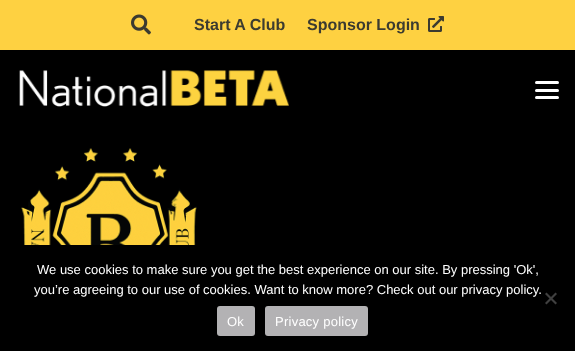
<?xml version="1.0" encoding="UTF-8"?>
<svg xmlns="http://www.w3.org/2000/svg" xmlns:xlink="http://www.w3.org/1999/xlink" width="575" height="351">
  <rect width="100%" height="100%" fill="#000000" />
  <rect width="575" height="50" fill="#fed141" />
  <image x="131" y="14" width="20" height="21" xlink:href="image1.png" />
  <image x="428" y="16" width="16" height="16" xlink:href="image2.png" />
  <image x="19" y="70" width="270" height="37" xlink:href="image3.png" />
  <rect x="535" y="89" width="24" height="3" rx="1.5" fill="#ffffff" />
  <rect x="535" y="81" width="24" height="3" rx="1.5" fill="#ffffff" />
  <rect x="535" y="96" width="24" height="3" rx="1.5" fill="#ffffff" />
  <image x="21" y="148" width="176" height="97" xlink:href="image4.png" />
  <path d="M 555.5 292.5 l 1.5 1.5 l -10.5 10.5 l -1.5 -1.5 z" fill="#404040" />
  <path d="M 545 294 l 1.5 -1.5 l 10.5 10.5 l -1.5 1.5 z" fill="#404040" />
  <rect x="217" y="306" width="38" height="30" rx="3" fill="#b3b2b4" />
  <rect x="265" y="306" width="103" height="30" rx="3" fill="#b3b2b4" />
  <text x="194" y="30" style="font-family: Liberation Sans; font-size: 16px; font-weight: bold; fill: #3c3b30">Start A Club</text>
  <text x="307" y="30" style="font-family: Liberation Sans; font-size: 16px; font-weight: bold; fill: #3c3b30">Sponsor Login</text>
  <text x="37" y="274" style="font-family: Liberation Sans; font-size: 13px; fill: #ffffff">We use cookies to make sure you get the best experience on our site. By pressing 'Ok',</text>
  <text x="34" y="294" style="font-family: Liberation Sans; font-size: 13px; fill: #ffffff">you’re agreeing to our use of cookies. Want to know more? Check out our privacy policy.</text>
  <text x="227" y="326" style="font-family: Liberation Sans; font-size: 13px; letter-spacing: 0.25px; fill: #ffffff">Ok</text>
  <text x="275" y="326" style="font-family: Liberation Sans; font-size: 13px; letter-spacing: 0.25px; fill: #ffffff">Privacy policy</text>
</svg>
